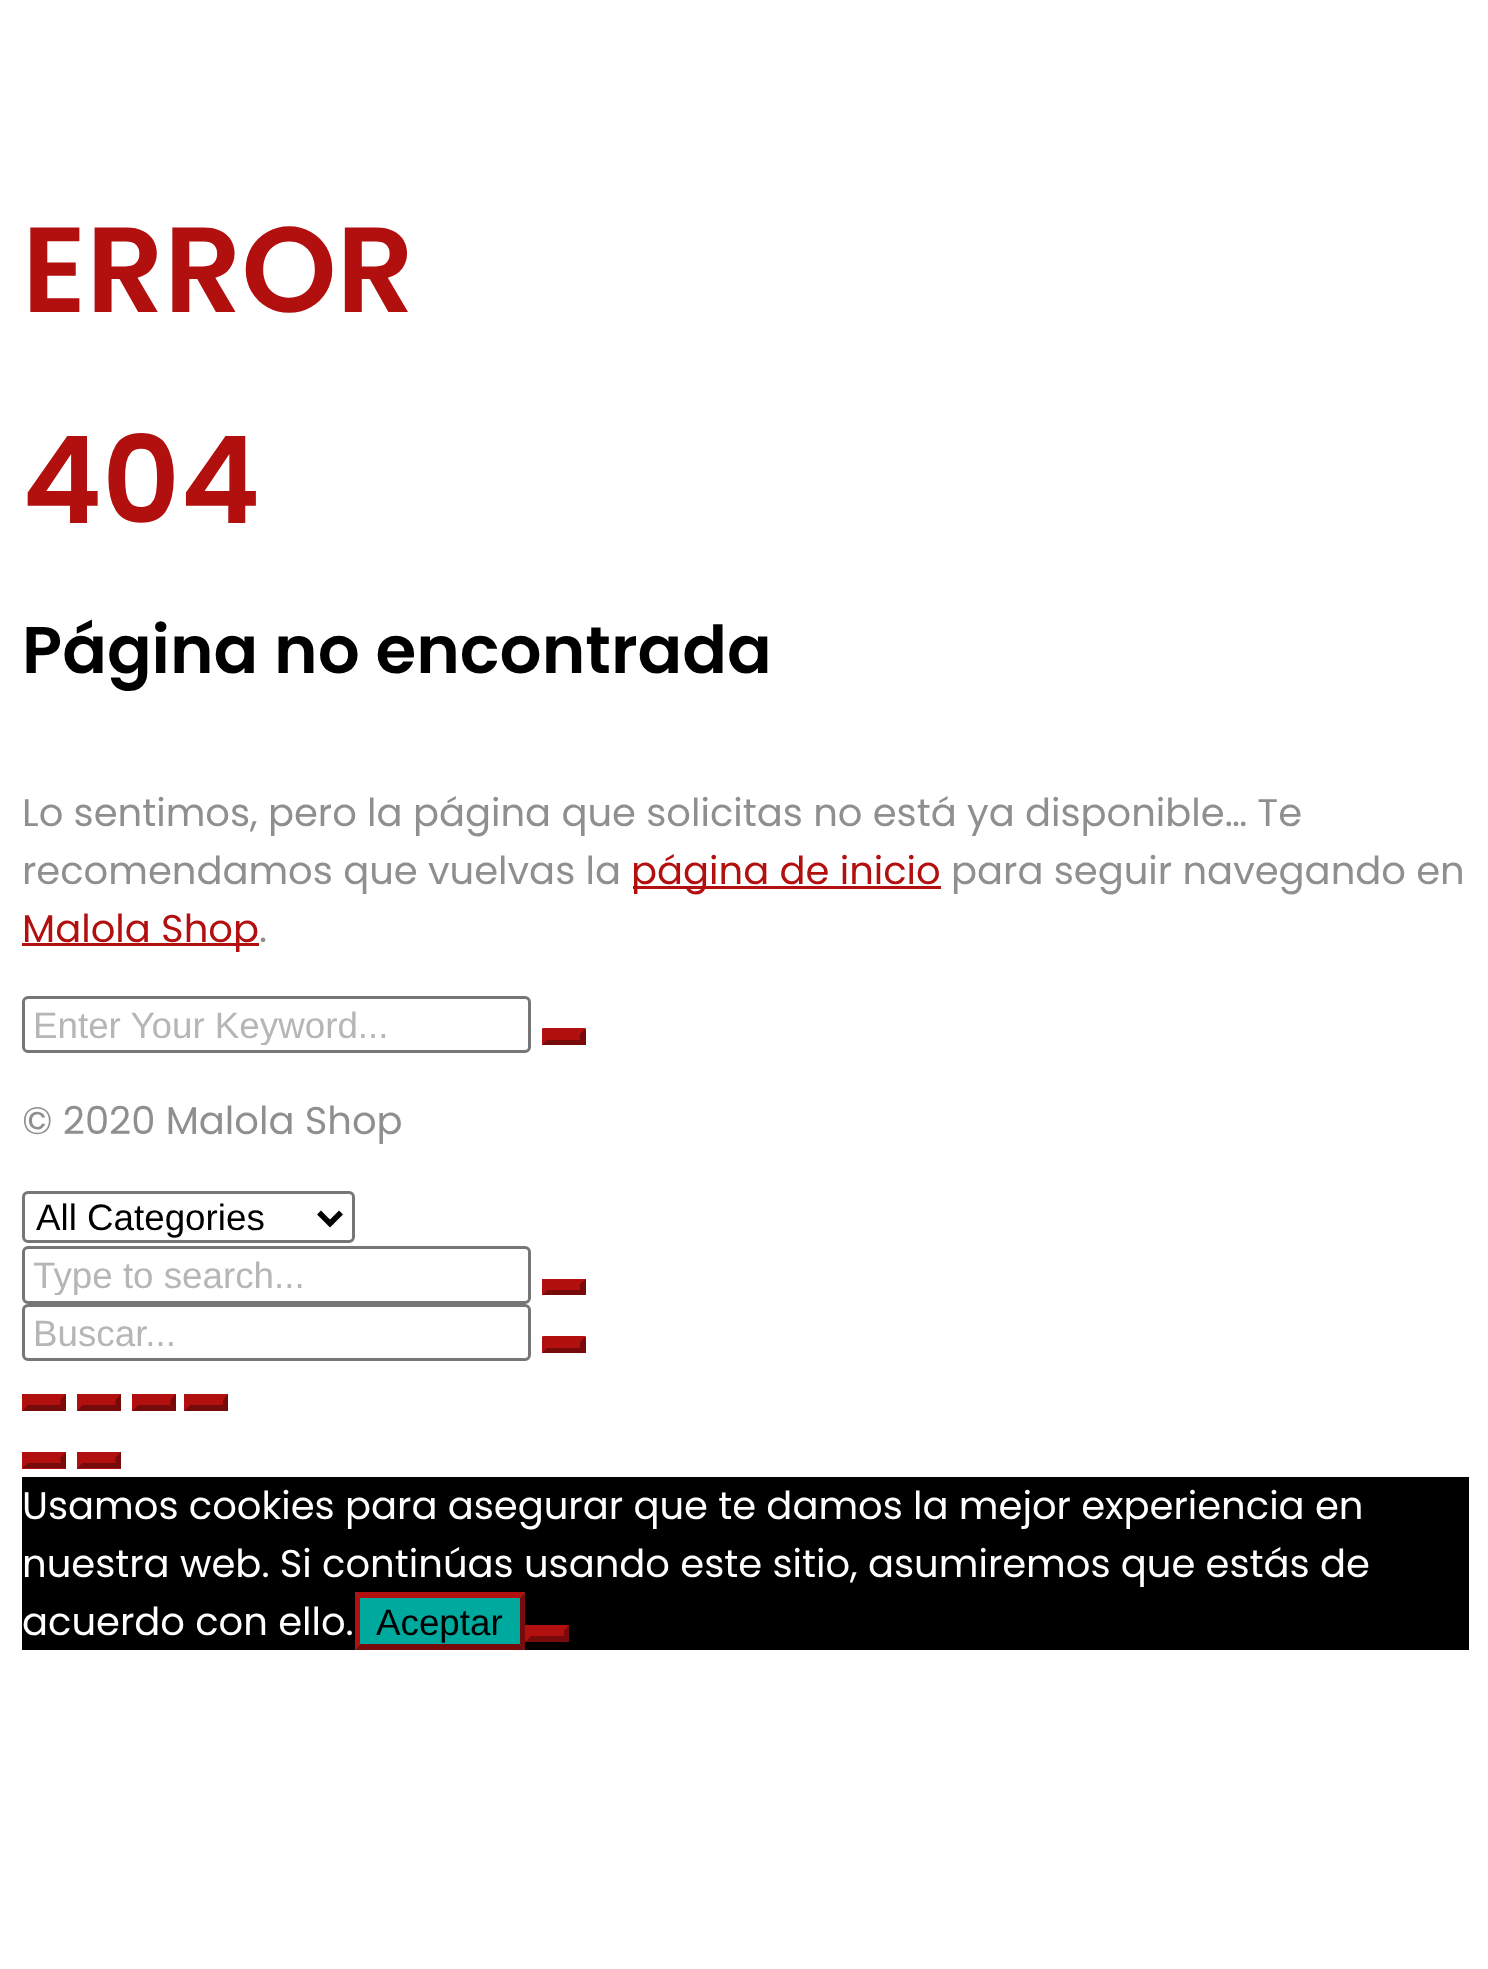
<?xml version="1.0" encoding="UTF-8"?>
<svg xmlns="http://www.w3.org/2000/svg" xmlns:xlink="http://www.w3.org/1999/xlink" width="1488" height="1969">
  <defs>
    <clipPath id="clip1"><rect x="33" y="1004" width="451" height="41" /></clipPath>
    <clipPath id="clip2"><rect x="33" y="1254" width="451" height="41" /></clipPath>
  </defs>
  <rect width="100%" height="100%" fill="#ffffff" />
  <rect x="633" y="886" width="308" height="3" fill="#b20f0f" />
  <rect x="22" y="943" width="237" height="3" fill="#b20f0f" />
  <rect x="23.5" y="997.5" width="506" height="54" rx="4.5" fill="none" stroke="#767676" stroke-width="3" />
  <rect x="542" y="1029" width="44" height="16" fill="#b20f0f" />
  <path d="M 542 1028 h 44 l -6 6 h -33 z" fill="#b20f0f" />
  <path d="M 586 1028.5 v 16.5 l -6 -5.5 v -5.5 z" fill="#770a0a" />
  <path d="M 586 1045 h -44 l 5 -5 h 33 z" fill="#770a0a" />
  <path d="M 542 1045 v -16.5 l 5 5.5 v 5.5 z" fill="#b20f0f" />
  <rect x="23.5" y="1192.5" width="330" height="49" rx="4.5" fill="none" stroke="#767676" stroke-width="3" />
  <path d="M 319 1212.5 l 11 11 l 11 -11" fill="none" stroke="#000000" stroke-width="5.5" />
  <rect x="23.5" y="1247.5" width="506" height="55" rx="4.5" fill="none" stroke="#767676" stroke-width="3" />
  <rect x="542" y="1279" width="44" height="16" fill="#b20f0f" />
  <path d="M 586 1279 v 16 l -6 -5 v -6 z" fill="#770a0a" />
  <path d="M 586 1295 h -44 l 5 -5 h 33 z" fill="#770a0a" />
  <path d="M 542 1295 v -16 l 5 5 v 6 z" fill="#b20f0f" />
  <rect x="23.5" y="1305.5" width="506" height="54" rx="4.5" fill="none" stroke="#767676" stroke-width="3" />
  <rect x="542" y="1337" width="44" height="16" fill="#b20f0f" />
  <path d="M 542 1336 h 44 l -6 6 h -33 z" fill="#b20f0f" />
  <path d="M 586 1336.5 v 16.5 l -6 -5.5 v -5.5 z" fill="#770a0a" />
  <path d="M 586 1353 h -44 l 5 -5 h 33 z" fill="#770a0a" />
  <path d="M 542 1353 v -16.5 l 5 5.5 v 5.5 z" fill="#b20f0f" />
  <rect x="22" y="1394" width="44" height="17" fill="#b20f0f" />
  <path d="M 66 1394 v 17 l -5.5 -6 v -5 z" fill="#770a0a" />
  <path d="M 66 1411 h -44 l 6 -6 h 32 z" fill="#770a0a" />
  <path d="M 22 1411 v -17 l 5.5 6 v 5 z" fill="#b20f0f" />
  <rect x="77" y="1394" width="44" height="17" fill="#b20f0f" />
  <path d="M 121 1394 v 17 l -5.5 -6 v -5 z" fill="#770a0a" />
  <path d="M 121 1411 h -44 l 5 -6 h 34 z" fill="#770a0a" />
  <path d="M 77 1411 v -17 l 5.5 6 v 5 z" fill="#b20f0f" />
  <rect x="132" y="1394" width="44" height="17" fill="#b20f0f" />
  <path d="M 176 1394 v 17 l -5.5 -6 v -5 z" fill="#770a0a" />
  <path d="M 176 1411 h -44 l 6 -6 h 32 z" fill="#770a0a" />
  <path d="M 132 1411 v -17 l 5.5 6 v 5 z" fill="#b20f0f" />
  <rect x="184" y="1394" width="44" height="17" fill="#b20f0f" />
  <path d="M 228 1394 v 17 l -5 -6 v -5 z" fill="#770a0a" />
  <path d="M 228 1411 h -44 l 6 -6 h 33 z" fill="#770a0a" />
  <path d="M 184 1411 v -17 l 6 6 v 5 z" fill="#b20f0f" />
  <rect x="22" y="1452" width="44" height="17" fill="#b20f0f" />
  <path d="M 66 1452 v 16.5 l -5.5 -5.5 v -5.5 z" fill="#770a0a" />
  <path d="M 66 1468 h -44 l 6 -5 h 32 z" fill="#770a0a" />
  <path d="M 22 1468.5 v -16.5 l 5.5 5.5 v 5.5 z" fill="#b20f0f" />
  <rect x="77" y="1452" width="44" height="17" fill="#b20f0f" />
  <path d="M 121 1452 v 16.5 l -5.5 -5.5 v -5.5 z" fill="#770a0a" />
  <path d="M 121 1468 h -44 l 5 -5 h 34 z" fill="#770a0a" />
  <path d="M 77 1468.5 v -16.5 l 5.5 5.5 v 5.5 z" fill="#b20f0f" />
  <rect x="22" y="1477" width="1447" height="173" fill="#000000" />
  <rect x="355" y="1592" width="170" height="58" fill="#00a99d" />
  <path d="M 355 1592 h 170 l -5 6 h -160 z" fill="#b20f0f" />
  <path d="M 525 1592 v 58 l -5 -6 v -46 z" fill="#770a0a" />
  <path d="M 525 1650 h -170 l 5 -6 h 160 z" fill="#770a0a" />
  <path d="M 355 1650 v -58 l 5 6 v 46 z" fill="#b20f0f" />
  <rect x="525" y="1625" width="44" height="17" fill="#b20f0f" />
  <path d="M 569 1625 v 17 l -5 -6 v -5 z" fill="#770a0a" />
  <path d="M 569 1642 h -44 l 6 -6 h 33 z" fill="#770a0a" />
  <path d="M 525 1642 v -17 l 6 6 v 5 z" fill="#b20f0f" />
  <text x="22" y="312" style="font-family: Poppins; font-size: 121px; font-weight: 600; fill: #b20f0f">ERROR</text>
  <text x="22" y="523" style="font-family: Poppins; font-size: 121px; font-weight: 600; fill: #b20f0f">404</text>
  <text x="22" y="673" style="font-family: Poppins; font-size: 66px; font-weight: 600; fill: #000000">Página no encontrada</text>
  <text x="22" y="826" style="font-family: Poppins; font-size: 38.5px; fill: #8f8f8f">Lo sentimos, pero la página que solicitas no está ya disponible… Te</text>
  <text x="22" y="884" style="font-family: Poppins; font-size: 38.5px; fill: #8f8f8f">recomendamos que vuelvas la</text>
  <text x="631" y="884" style="font-family: Poppins; font-size: 38.5px; fill: #b20f0f">página de inicio</text>
  <text x="951" y="884" style="font-family: Poppins; font-size: 38.5px; fill: #8f8f8f">para seguir navegando en</text>
  <text x="22" y="942" style="font-family: Poppins; font-size: 38.5px; fill: #b20f0f">Malola Shop</text>
  <text x="259" y="942" style="font-family: Poppins; font-size: 38.5px; fill: #8f8f8f">.</text>
  <g clip-path="url(#clip1)">
    <text x="33" y="1038" style="font-family: Liberation Sans; font-size: 36.75px; fill: #b6b6b6">Enter Your Keyword...</text>
  </g>
  <text x="22" y="1134" style="font-family: Poppins; font-size: 38.5px; fill: #8f8f8f">© 2020 Malola Shop</text>
  <text x="36" y="1230" style="font-family: Liberation Sans; font-size: 36.75px; fill: #000000">All Categories</text>
  <g clip-path="url(#clip2)">
    <text x="33" y="1288" style="font-family: Liberation Sans; font-size: 36.75px; fill: #b6b6b6">Type to search...</text>
  </g>
  <text x="33" y="1346" style="font-family: Liberation Sans; font-size: 36.75px; fill: #b6b6b6">Buscar...</text>
  <text x="22" y="1519" style="font-family: Poppins; font-size: 38.5px; fill: #ffffff">Usamos cookies para asegurar que te damos la mejor experiencia en</text>
  <text x="22" y="1577" style="font-family: Poppins; font-size: 38.5px; fill: #ffffff">nuestra web. Si continúas usando este sitio, asumiremos que estás de</text>
  <text x="22" y="1635" style="font-family: Poppins; font-size: 38.5px; fill: #ffffff">acuerdo con ello.</text>
  <text x="376" y="1635" style="font-family: Liberation Sans; font-size: 36.75px; fill: #000000">Aceptar</text>
</svg>
